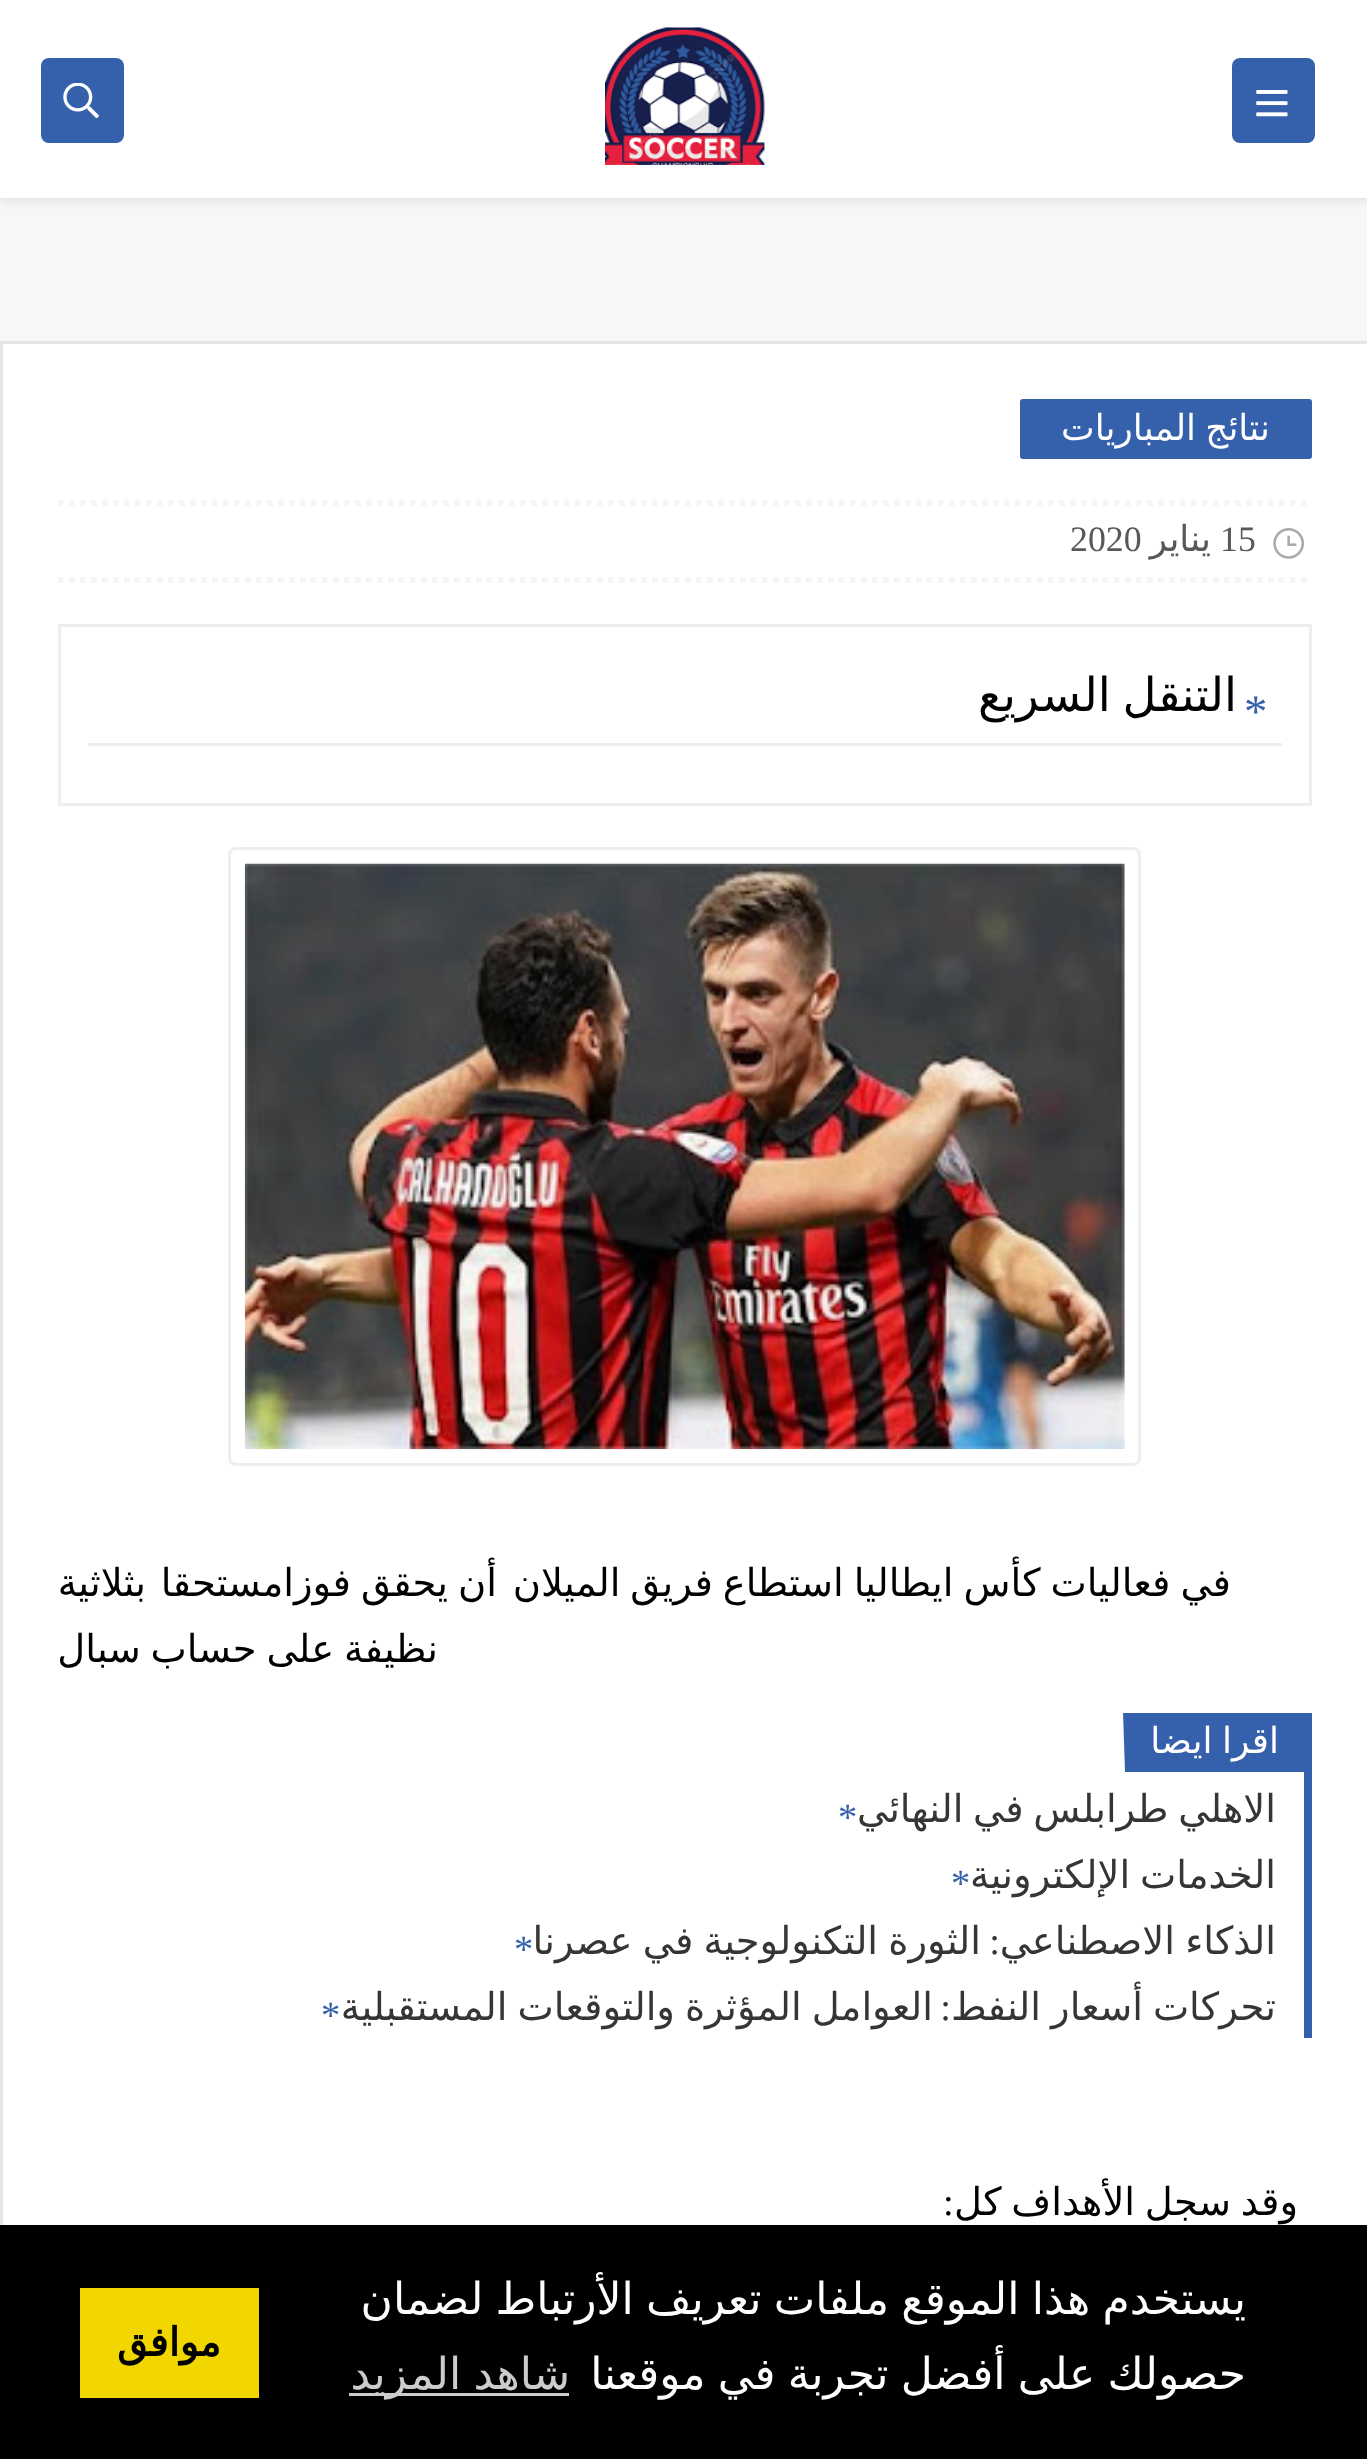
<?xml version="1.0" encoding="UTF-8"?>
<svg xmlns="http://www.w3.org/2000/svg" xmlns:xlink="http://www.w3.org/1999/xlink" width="1367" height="2459">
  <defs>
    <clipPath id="clip1"><rect x="58" y="1713" width="1254" height="325" /></clipPath>
    <clipPath id="clip2"><rect x="85" y="1774" width="1191" height="66" /></clipPath>
    <clipPath id="clip3"><rect x="85" y="1972" width="1191" height="66" /></clipPath>
  </defs>
  <rect width="100%" height="100%" fill="#f7f7f7" />
  <rect y="3" width="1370" height="198" fill="#202124" fill-opacity="0.1" filter="blur(4px)" />
  <rect width="1367" height="198" fill="#ffffff" />
  <rect x="1232" y="58" width="83" height="85" rx="8" fill="#3560ab" />
  <image x="1256" y="90" width="32" height="27" xlink:href="image1.png" />
  <image x="605" y="27" width="160" height="138" xlink:href="image2.png" />
  <rect x="41" y="58" width="83" height="85" rx="8" fill="#3560ab" />
  <image x="63" y="83" width="36" height="35" xlink:href="image3.png" />
  <rect x="3" y="344" width="1364" height="1881" fill="#ffffff" />
  <rect x="1.5" y="342.5" width="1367" height="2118" fill="none" stroke="#e6e6e6" stroke-width="3" />
  <rect x="1020" y="399" width="292" height="60" rx="3" fill="#3560ab" />
  <path d="M 58 503 h 1254" fill="none" stroke="#f5f5f5" stroke-width="5.5" stroke-dasharray="5.5 5.5" />
  <path d="M 58 580 h 1254" fill="none" stroke="#f5f5f5" stroke-width="5.5" stroke-dasharray="5.5 5.5" />
  <image x="1273" y="528" width="31" height="31" xlink:href="image4.png" />
  <rect x="59.5" y="625.5" width="1251" height="179" fill="none" stroke="#eeeeee" stroke-width="3" />
  <rect x="88" y="743" width="1194" height="3" fill="#eeeeee" />
  <rect x="229.5" y="848.5" width="910" height="616" rx="6.5" fill="none" stroke="#eeeeee" stroke-width="3" />
  <image x="244" y="863" width="881" height="587" xlink:href="image5.png" />
  <rect x="1304" y="1713" width="8" height="325" fill="#3560ab" />
  <g clip-path="url(#clip1)">
    <path d="M 1123 1712 h 182 l 2 60 h -182 z" fill="#3560ab" />
  </g>
  <rect y="2225" width="1367" height="234" fill="#000000" />
  <rect x="349" y="2393" width="220" height="3" fill="#cccccc" />
  <rect x="80" y="2288" width="179" height="110" fill="#f1d600" />
  <text x="1270" y="440" word-spacing="-2" style="font-family: DejaVu Sans; font-size: 35.75px; direction: rtl; fill: #ffffff">نتائج المباريات</text>
  <text x="1220" y="551" style="font-family: Liberation Serif; font-size: 35.75px; fill: #585858">15</text>
  <text x="1211" y="551" style="font-family: DejaVu Sans; font-size: 35.75px; direction: rtl; fill: #585858">يناير</text>
  <text x="1070" y="551" style="font-family: Liberation Serif; font-size: 35.75px; fill: #585858">2020</text>
  <text x="1244" y="727" style="font-family: Liberation Serif; font-size: 46.75px; fill: #3560ab">*</text>
  <text x="1237" y="711" word-spacing="-3" style="font-family: DejaVu Sans; font-size: 46.75px; direction: rtl; fill: #000000">التنقل السريع</text>
  <text x="1231" y="1596" word-spacing="-2.25" style="font-family: DejaVu Sans; font-size: 38.5px; direction: rtl; fill: #000000">في فعاليات كأس ايطاليا استطاع فريق الميلان</text>
  <text x="497" y="1596" word-spacing="-2.25" style="font-family: DejaVu Sans; font-size: 38.5px; direction: rtl; fill: #000000">أن يحقق فوزامستحقا</text>
  <text x="146" y="1596" style="font-family: DejaVu Sans; font-size: 38.5px; direction: rtl; fill: #000000">بثلاثية</text>
  <text x="438" y="1662" word-spacing="-2.5" style="font-family: DejaVu Sans; font-size: 38.5px; direction: rtl; fill: #000000">نظيفة على حساب سبال</text>
  <text x="1279" y="1753" word-spacing="-2" style="font-family: DejaVu Sans; font-size: 36px; direction: rtl; fill: #ffffff">اقرا ايضا</text>
  <g clip-path="url(#clip2)">
    <text x="1276" y="1822" word-spacing="-2.5" style="font-family: DejaVu Sans; font-size: 38.5px; direction: rtl; fill: #353535">الاهلي طرابلس في النهائي</text>
  </g>
  <text x="838" y="1830" style="font-family: Liberation Serif; font-size: 38.5px; fill: #3560ab">*</text>
  <text x="1276" y="1888" word-spacing="-2.5" style="font-family: DejaVu Sans; font-size: 38.5px; direction: rtl; fill: #353535">الخدمات الإلكترونية</text>
  <text x="951" y="1896" style="font-family: Liberation Serif; font-size: 38.5px; fill: #3560ab">*</text>
  <text x="1276" y="1954" word-spacing="-2" style="font-family: DejaVu Sans; font-size: 38.5px; direction: rtl; fill: #353535">الذكاء الاصطناعي</text>
  <text x="1000" y="1954" style="font-family: Liberation Serif; font-size: 38.5px; direction: rtl; fill: #353535">:</text>
  <text x="981" y="1954" word-spacing="-2" style="font-family: DejaVu Sans; font-size: 38.5px; direction: rtl; fill: #353535">الثورة التكنولوجية في عصرنا</text>
  <text x="514" y="1962" style="font-family: Liberation Serif; font-size: 38.5px; fill: #3560ab">*</text>
  <g clip-path="url(#clip3)">
    <text x="1276" y="2020" word-spacing="-2.25" style="font-family: DejaVu Sans; font-size: 38.5px; direction: rtl; fill: #353535">تحركات أسعار النفط</text>
  </g>
  <text x="951" y="2020" style="font-family: Liberation Serif; font-size: 38.5px; direction: rtl; fill: #353535">:</text>
  <text x="933" y="2020" word-spacing="-2.25" style="font-family: DejaVu Sans; font-size: 38.5px; direction: rtl; fill: #353535">العوامل المؤثرة والتوقعات المستقبلية</text>
  <text x="321" y="2028" style="font-family: Liberation Serif; font-size: 38.5px; fill: #3560ab">*</text>
  <text x="1298" y="2215" word-spacing="-2.5" style="font-family: DejaVu Sans; font-size: 38.5px; direction: rtl; fill: #000000">وقد سجل الأهداف كل</text>
  <text x="943" y="2215" style="font-family: Liberation Serif; font-size: 38.5px; fill: #000000">:</text>
  <text x="1246" y="2314" word-spacing="-1.75" style="font-family: DejaVu Sans; font-size: 44px; direction: rtl; fill: #ffffff">يستخدم هذا الموقع ملفات تعريف الأرتباط لضمان</text>
  <text x="1246" y="2389" word-spacing="-1.75" style="font-family: DejaVu Sans; font-size: 44px; direction: rtl; fill: #ffffff">حصولك على أفضل تجربة في موقعنا</text>
  <text x="570" y="2389" word-spacing="-1.75" style="font-family: DejaVu Sans; font-size: 44px; direction: rtl; fill: #cccccc">شاهد المزيد</text>
  <text x="221" y="2356" style="font-family: DejaVu Sans; font-size: 39.5px; font-weight: bold; direction: rtl; fill: #000000">موافق</text>
</svg>
